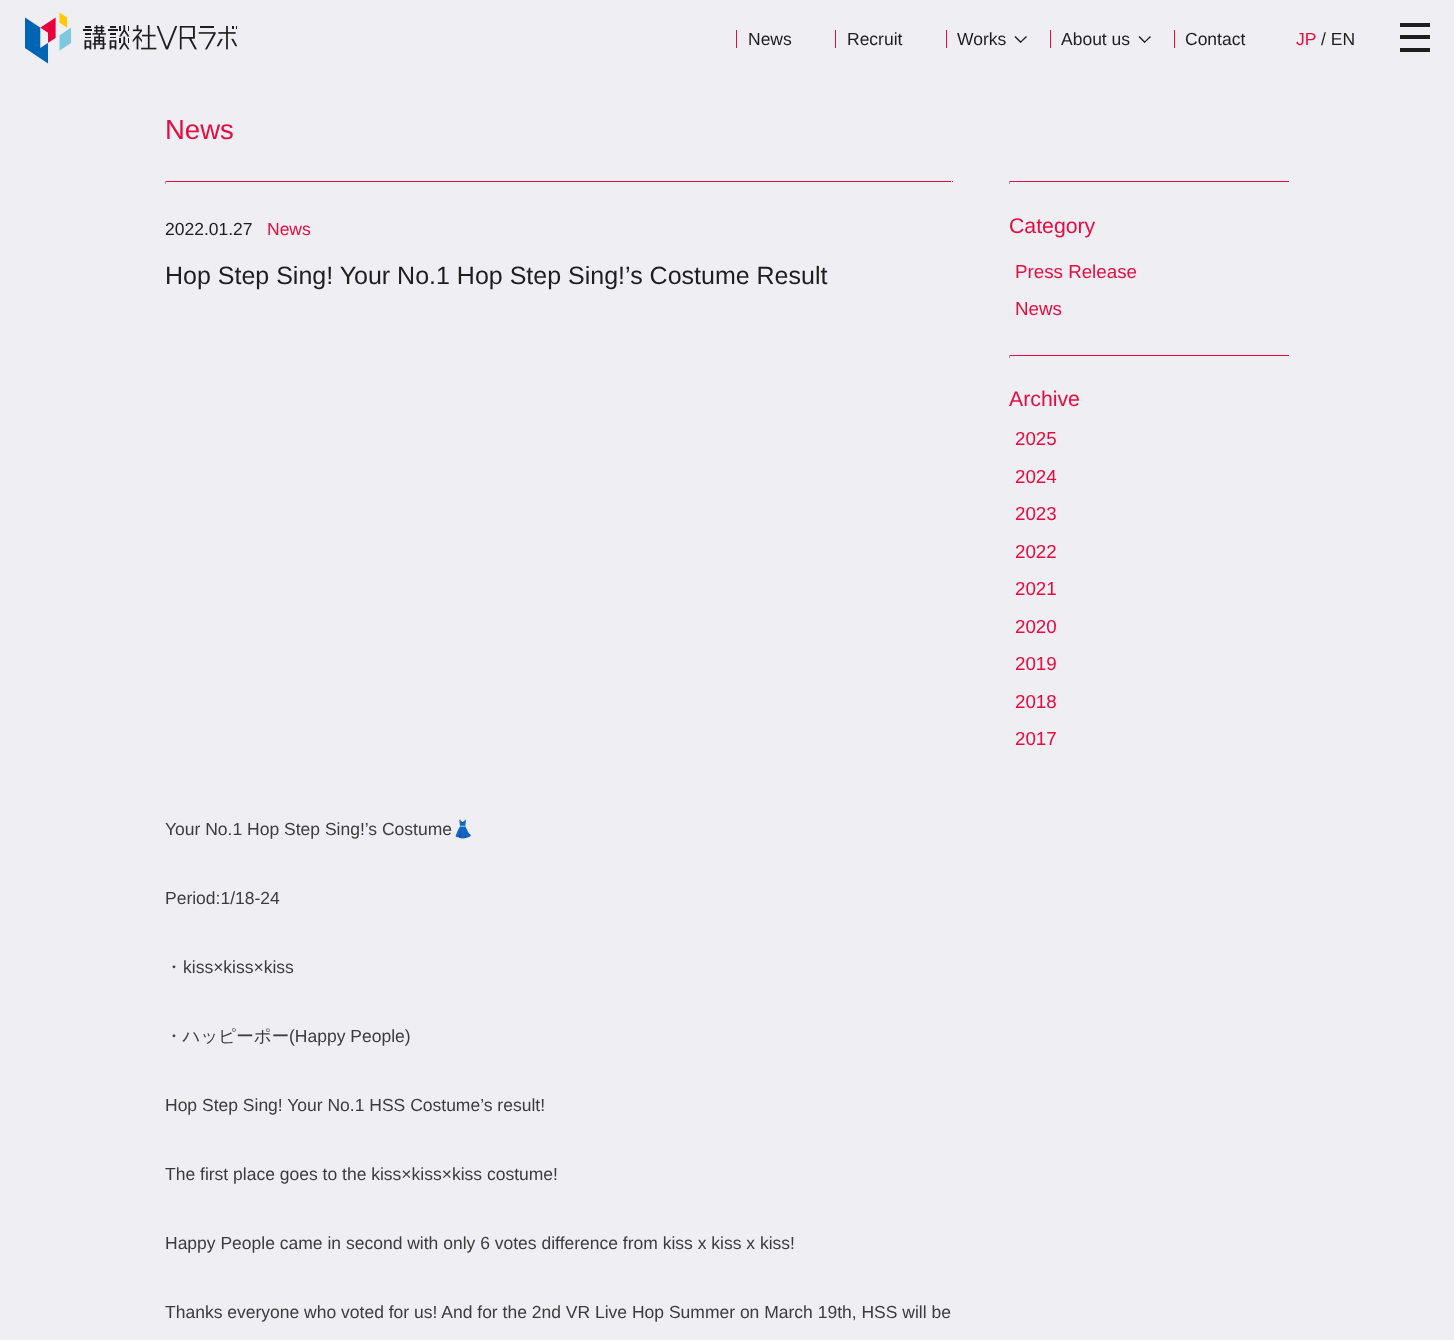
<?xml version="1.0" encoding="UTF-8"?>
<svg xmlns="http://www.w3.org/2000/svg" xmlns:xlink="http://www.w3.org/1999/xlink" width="1454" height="1340">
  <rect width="100%" height="100%" fill="#eeeef3" />
  <image x="25" y="13" width="213" height="51" xlink:href="image1.png" />
  <rect x="736" y="30" width="1" height="18" fill="#e30d41" />
  <rect x="835" y="30" width="1" height="18" fill="#e30d41" />
  <rect x="946" y="30" width="1" height="18" fill="#e30d41" />
  <path d="M 1027 37 l -6.5 6 l -0.5 -1 l 6 -6 z" fill="#1e1e1e" />
  <path d="M 1021.5 42 l -1 1 l -6 -6 l 1 -1 z" fill="#1e1e1e" />
  <rect x="1050" y="30" width="1" height="18" fill="#e30d41" />
  <path d="M 1151 37 l -6.5 6 l -0.5 -1 l 6 -6 z" fill="#1e1e1e" />
  <path d="M 1145.5 42 l -1 1 l -6 -6 l 1 -1 z" fill="#1e1e1e" />
  <rect x="1174" y="30" width="1" height="18" fill="#e30d41" />
  <rect x="1400" y="35" width="30" height="4" fill="#1e1e1e" />
  <rect x="1400" y="23" width="30" height="4" fill="#1e1e1e" />
  <rect x="1400" y="48" width="30" height="4" fill="#1e1e1e" />
  <rect x="165" y="181" width="788" height="1" fill="#e30d41" />
  <rect x="951" y="181" width="1" height="3" fill="#eeeeee" />
  <rect x="165" y="183" width="788" height="1" fill="#eeeeee" />
  <rect x="165" y="181" width="1" height="3" fill="#9f9f9f" />
  <rect x="1009" y="181" width="281" height="1" fill="#e30d41" />
  <rect x="1289" y="181" width="1" height="3" fill="#eeeeee" />
  <rect x="1009" y="183" width="281" height="1" fill="#eeeeee" />
  <rect x="1009" y="181" width="1" height="3" fill="#9f9f9f" />
  <rect x="1009" y="355" width="281" height="1" fill="#e30d41" />
  <rect x="1289" y="355" width="1" height="3" fill="#eeeeee" />
  <rect x="1009" y="356" width="281" height="1" fill="#eeeeee" />
  <rect x="1009" y="355" width="1" height="3" fill="#9f9f9f" />
  <text x="748" y="45" style="font-family: Liberation Sans; font-size: 17.5px; fill: #1e1e1e">News</text>
  <text x="847" y="45" style="font-family: Liberation Sans; font-size: 17.5px; fill: #1e1e1e">Recruit</text>
  <text x="957" y="45" style="font-family: Liberation Sans; font-size: 17.5px; fill: #1e1e1e">Works</text>
  <text x="1061" y="45" style="font-family: Liberation Sans; font-size: 17.5px; fill: #1e1e1e">About us</text>
  <text x="1185" y="45" style="font-family: Liberation Sans; font-size: 17.5px; fill: #1e1e1e">Contact</text>
  <text x="1296" y="45" style="font-family: Liberation Sans; font-size: 17.5px; fill: #e30d41">JP</text>
  <text x="1321" y="45" style="font-family: Liberation Sans; font-size: 17.5px; fill: #1e1e1e">/ EN</text>
  <text x="165" y="139" style="font-family: Liberation Sans; font-size: 27.5px; fill: #e30d41">News</text>
  <text x="165" y="235" style="font-family: Liberation Sans; font-size: 17.5px; fill: #1e1e1e">2022.01.27</text>
  <text x="267" y="235" style="font-family: Liberation Sans; font-size: 17.5px; fill: #e30d41">News</text>
  <text x="165" y="284" style="font-family: Liberation Sans; font-size: 25px; fill: #1e1e1e">Hop Step Sing! Your No.1 Hop Step Sing!’s Costume Result</text>
  <text x="165" y="835" style="font-family: Liberation Sans; font-size: 17.5px; fill: #3c3c3c">Your No.1 Hop Step Sing!’s Costume</text>
  <text x="452" y="835" style="font-family: Noto Color Emoji; font-size: 17.5px; fill: #3c3c3c">👗</text>
  <text x="165" y="904" style="font-family: Liberation Sans; font-size: 17.5px; fill: #3c3c3c">Period:1/18-24</text>
  <text x="165" y="973" style="font-family: WenQuanYi Zen Hei; font-size: 17.5px; font-weight: 500; fill: #3c3c3c">・</text>
  <text x="183" y="973" style="font-family: Liberation Sans; font-size: 17.5px; fill: #3c3c3c">kiss×kiss×kiss</text>
  <text x="165" y="1042" style="font-family: WenQuanYi Zen Hei; font-size: 17.5px; font-weight: 500; fill: #3c3c3c">・ハッピーポー</text>
  <text x="289" y="1042" style="font-family: Liberation Sans; font-size: 17.5px; fill: #3c3c3c">(Happy People)</text>
  <text x="165" y="1111" style="font-family: Liberation Sans; font-size: 17.5px; fill: #3c3c3c">Hop Step Sing! Your No.1 HSS Costume’s result!</text>
  <text x="165" y="1180" style="font-family: Liberation Sans; font-size: 17.5px; fill: #3c3c3c">The first place goes to the kiss×kiss×kiss costume!</text>
  <text x="165" y="1249" style="font-family: Liberation Sans; font-size: 17.5px; fill: #3c3c3c">Happy People came in second with only 6 votes difference from kiss x kiss x kiss!</text>
  <text x="165" y="1318" style="font-family: Liberation Sans; font-size: 17.5px; fill: #3c3c3c">Thanks everyone who voted for us! And for the 2nd VR Live Hop Summer on March 19th, HSS will be</text>
  <text x="1009" y="233" style="font-family: Liberation Sans; font-size: 21.25px; fill: #e30d41">Category</text>
  <text x="1015" y="278" style="font-family: Liberation Sans; font-size: 18.75px; fill: #e30d41">Press Release</text>
  <text x="1015" y="315" style="font-family: Liberation Sans; font-size: 18.75px; fill: #e30d41">News</text>
  <text x="1009" y="406" style="font-family: Liberation Sans; font-size: 21.25px; fill: #e30d41">Archive</text>
  <text x="1015" y="445" style="font-family: Liberation Sans; font-size: 18.75px; fill: #e30d41">2025</text>
  <text x="1015" y="483" style="font-family: Liberation Sans; font-size: 18.75px; fill: #e30d41">2024</text>
  <text x="1015" y="520" style="font-family: Liberation Sans; font-size: 18.75px; fill: #e30d41">2023</text>
  <text x="1015" y="558" style="font-family: Liberation Sans; font-size: 18.75px; fill: #e30d41">2022</text>
  <text x="1015" y="595" style="font-family: Liberation Sans; font-size: 18.75px; fill: #e30d41">2021</text>
  <text x="1015" y="633" style="font-family: Liberation Sans; font-size: 18.75px; fill: #e30d41">2020</text>
  <text x="1015" y="670" style="font-family: Liberation Sans; font-size: 18.75px; fill: #e30d41">2019</text>
  <text x="1015" y="708" style="font-family: Liberation Sans; font-size: 18.75px; fill: #e30d41">2018</text>
  <text x="1015" y="745" style="font-family: Liberation Sans; font-size: 18.75px; fill: #e30d41">2017</text>
</svg>
